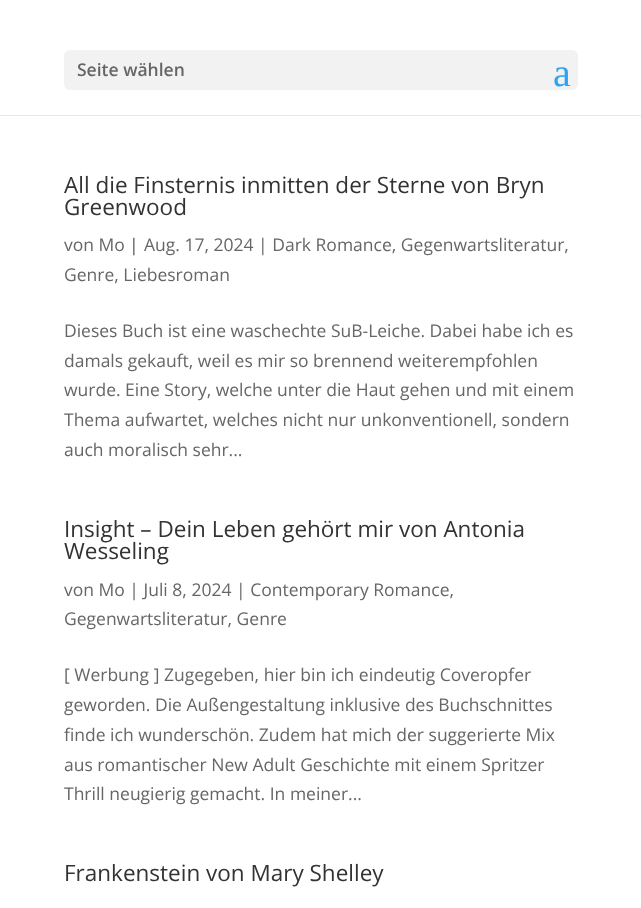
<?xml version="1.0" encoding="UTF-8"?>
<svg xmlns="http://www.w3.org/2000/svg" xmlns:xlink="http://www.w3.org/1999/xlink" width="641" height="908">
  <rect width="100%" height="100%" fill="#ffffff" />
  <rect y="115" width="641" height="1" fill="#e6e6e6" />
  <rect x="64" y="50" width="514" height="40" rx="6" fill="#f2f2f2" />
  <text x="77" y="76" style="font-family: Open Sans; font-size: 17.5px; font-weight: 600; fill: #666666">Seite wählen</text>
  <text x="553" y="86" style="font-family: Liberation Serif; font-size: 40px; fill: #2ea3f2">a</text>
  <text x="64" y="193" style="font-family: Open Sans; font-size: 22.5px; fill: #333333">All die Finsternis inmitten der Sterne von Bryn</text>
  <text x="64" y="215" style="font-family: Open Sans; font-size: 22.5px; fill: #333333">Greenwood</text>
  <text x="64" y="251" style="font-family: Open Sans; font-size: 17.5px; fill: #666666">von Mo</text>
  <text x="129" y="251" style="font-family: Open Sans; font-size: 17.5px; font-weight: 500; fill: #666666">|</text>
  <text x="144" y="251" style="font-family: Open Sans; font-size: 17.5px; fill: #666666">Aug. 17, 2024 | Dark Romance, Gegenwartsliteratur,</text>
  <text x="64" y="281" style="font-family: Open Sans; font-size: 17.5px; fill: #666666">Genre, Liebesroman</text>
  <text x="64" y="337" style="font-family: Open Sans; font-size: 17.5px; fill: #666666">Dieses Buch ist eine waschechte SuB-Leiche. Dabei habe ich es</text>
  <text x="64" y="367" style="font-family: Open Sans; font-size: 17.5px; fill: #666666">damals gekauft, weil es mir so brennend weiterempfohlen</text>
  <text x="64" y="396" style="font-family: Open Sans; font-size: 17.5px; fill: #666666">wurde. Eine Story, welche unter die Haut gehen und mit einem</text>
  <text x="64" y="426" style="font-family: Open Sans; font-size: 17.5px; fill: #666666">Thema aufwartet, welches nicht nur unkonventionell, sondern</text>
  <text x="64" y="456" style="font-family: Open Sans; font-size: 17.5px; fill: #666666">auch moralisch sehr...</text>
  <text x="64" y="537" style="font-family: Open Sans; font-size: 22.5px; fill: #333333">Insight – Dein Leben gehört mir von Antonia</text>
  <text x="64" y="559" style="font-family: Open Sans; font-size: 22.5px; fill: #333333">Wesseling</text>
  <text x="64" y="596" style="font-family: Open Sans; font-size: 17.5px; fill: #666666">von Mo | Juli 8, 2024 | Contemporary Romance,</text>
  <text x="64" y="625" style="font-family: Open Sans; font-size: 17.5px; fill: #666666">Gegenwartsliteratur, Genre</text>
  <text x="64" y="681" style="font-family: Open Sans; font-size: 17.5px; fill: #666666">[ Werbung ] Zugegeben, hier bin ich eindeutig Coveropfer</text>
  <text x="64" y="711" style="font-family: Open Sans; font-size: 17.5px; fill: #666666">geworden. Die Außengestaltung inklusive des Buchschnittes</text>
  <text x="64" y="741" style="font-family: Open Sans; font-size: 17.5px; fill: #666666">finde ich wunderschön. Zudem hat mich der suggerierte Mix</text>
  <text x="64" y="771" style="font-family: Open Sans; font-size: 17.5px; fill: #666666">aus romantischer New Adult Geschichte mit einem Spritzer</text>
  <text x="64" y="800" style="font-family: Open Sans; font-size: 17.5px; fill: #666666">Thrill neugierig gemacht. In meiner...</text>
  <text x="64" y="881" style="font-family: Open Sans; font-size: 22.5px; fill: #333333">Frankenstein von Mary Shelley</text>
</svg>
